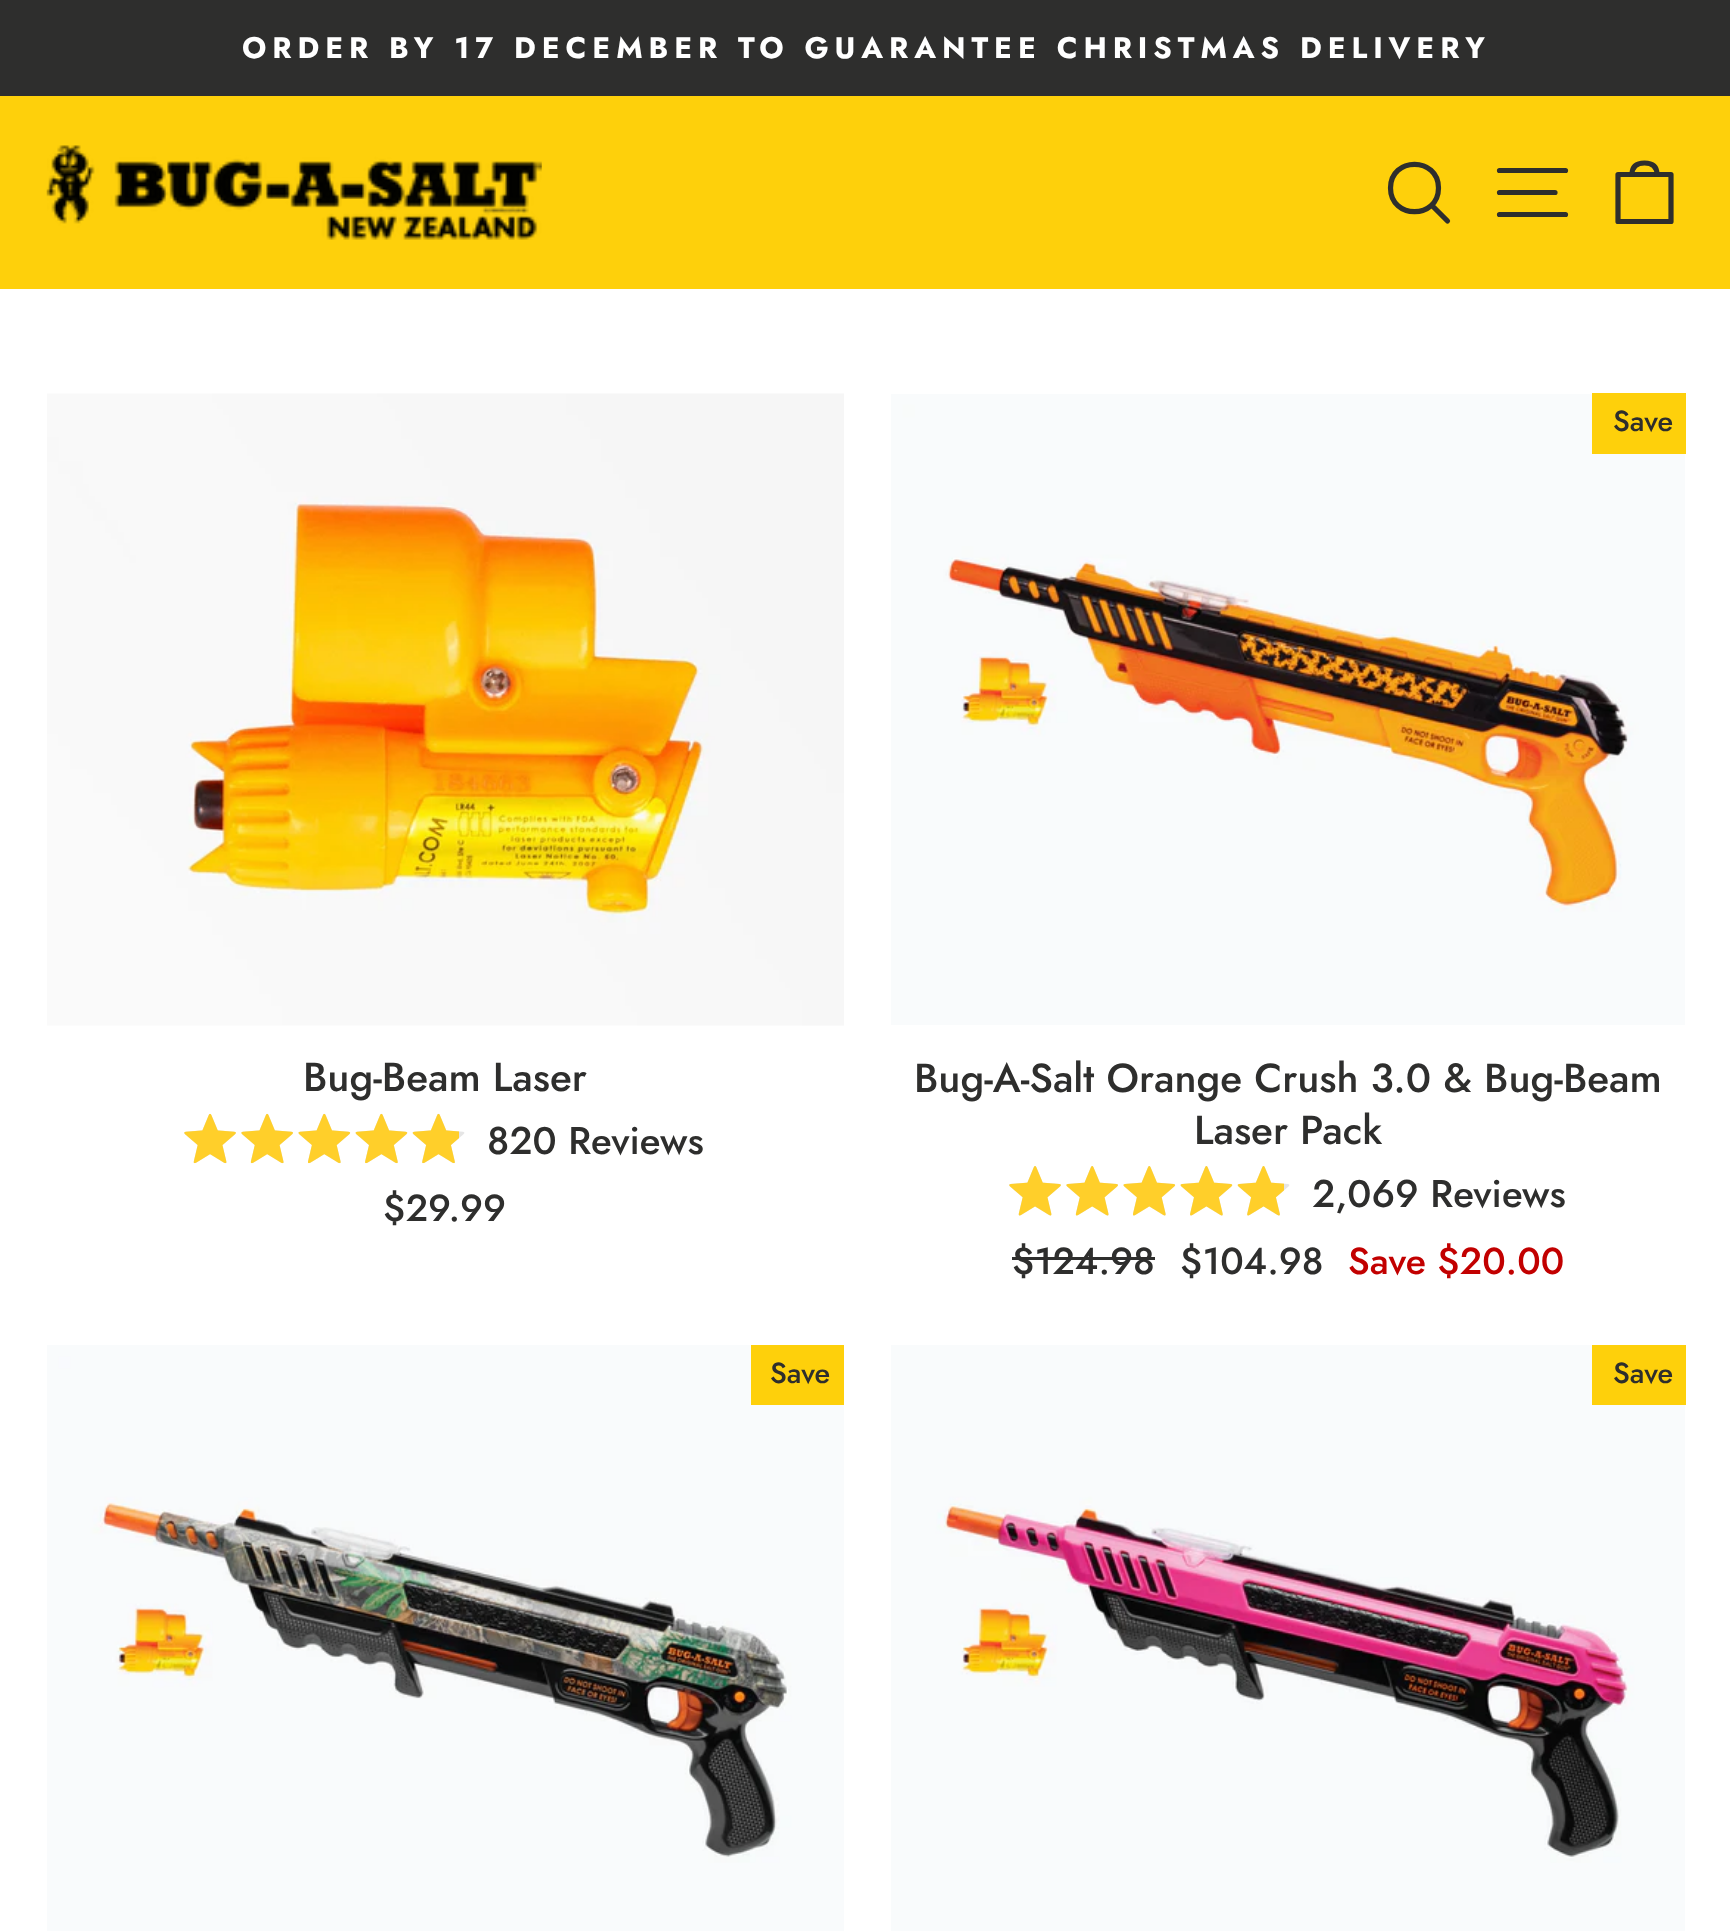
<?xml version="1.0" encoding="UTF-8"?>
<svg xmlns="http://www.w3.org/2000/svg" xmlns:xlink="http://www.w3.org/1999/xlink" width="1730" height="1931">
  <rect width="100%" height="100%" fill="#ffffff" />
  <rect width="1730" height="96" fill="#2e2e2d" />
  <rect y="96" width="1730" height="193" fill="#fed00b" />
  <image x="46" y="145" width="496" height="95" xlink:href="image1.png" />
  <path d="M 1438.5 188 c 0 31.5 -48 31.5 -48 0 c 0 -31.5 48 -31.5 48 0 z m 9 33 l -15.5 -15.5" fill="none" stroke="#2e2e2d" stroke-width="5.2" stroke-linecap="round" stroke-linejoin="round" />
  <path d="M 1499.5 170.5 h 66 m -66 22 h 55.5 m -55.5 22 h 66" fill="none" stroke="#2e2e2d" stroke-width="5.2" stroke-linecap="round" stroke-linejoin="round" />
  <path d="M 1618 174.5 h 53 v 47 h -53 z" fill="none" stroke="#2e2e2d" stroke-width="5.2" stroke-linecap="round" stroke-linejoin="round" />
  <path d="M 1632 174.5 c 0 -9 5.5 -11.5 12.5 -11.5 c 7 0 12.5 2.5 12.5 11.5" fill="none" stroke="#2e2e2d" stroke-width="5.2" stroke-linecap="round" stroke-linejoin="round" />
  <image x="47" y="393" width="797" height="633" xlink:href="image2.png" />
  <image x="184" y="1113" width="281" height="51" xlink:href="image3.png" />
  <image x="184" y="1114" width="275" height="49" xlink:href="image4.png" />
  <image x="891" y="394" width="794" height="631" xlink:href="image5.png" />
  <rect x="1592" y="393" width="94" height="61" fill="#fed00b" />
  <image x="1009" y="1166" width="281" height="50" xlink:href="image6.png" />
  <image x="1009" y="1166" width="275" height="50" xlink:href="image7.png" />
  <rect x="1012" y="1257" width="143" height="3" fill="#2e2e2d" />
  <image x="47" y="1345" width="797" height="586" xlink:href="image8.png" />
  <rect x="751" y="1345" width="93" height="60" fill="#fed00b" />
  <image x="891" y="1345" width="794" height="586" xlink:href="image9.png" />
  <rect x="1592" y="1345" width="94" height="60" fill="#fed00b" />
  <text x="242" y="58" style="font-family: Jost; font-size: 29.7px; font-weight: bold; letter-spacing: 5.95px; fill: #ffffff">ORDER BY 17 DECEMBER TO GUARANTEE CHRISTMAS DELIVERY</text>
  <text x="303" y="1091" style="font-family: Jost; font-size: 40.5px; font-weight: 500; fill: #2e2e2d">Bug-Beam Laser</text>
  <text x="487" y="1154" style="font-family: Jost; font-size: 38.5px; font-weight: 500; fill: #2e2e2d">820 Reviews</text>
  <text x="383" y="1221" style="font-family: Jost; font-size: 37.5px; font-weight: 500; fill: #2e2e2d">$29.99</text>
  <text x="1613" y="431" style="font-family: Jost; font-size: 29px; font-weight: 500; fill: #2e2e2d">Save</text>
  <text x="914" y="1092" style="font-family: Jost; font-size: 40.5px; font-weight: 500; fill: #2e2e2d">Bug-A-Salt Orange Crush 3.0 &amp; Bug-Beam</text>
  <text x="1194" y="1144" style="font-family: Jost; font-size: 40.5px; font-weight: 500; fill: #2e2e2d">Laser Pack</text>
  <text x="1312" y="1207" style="font-family: Jost; font-size: 38.5px; font-weight: 500; fill: #2e2e2d">2,069 Reviews</text>
  <text x="1012" y="1274" style="font-family: Jost; font-size: 37.5px; font-weight: 500; fill: #2e2e2d">$124.98</text>
  <text x="1180" y="1274" style="font-family: Jost; font-size: 37.5px; font-weight: 500; fill: #2e2e2d">$104.98</text>
  <text x="1348" y="1274" style="font-family: Jost; font-size: 37.5px; font-weight: 500; fill: #c20000">Save $20.00</text>
  <text x="770" y="1383" style="font-family: Jost; font-size: 29px; font-weight: 500; fill: #2e2e2d">Save</text>
  <text x="1613" y="1383" style="font-family: Jost; font-size: 29px; font-weight: 500; fill: #2e2e2d">Save</text>
</svg>
